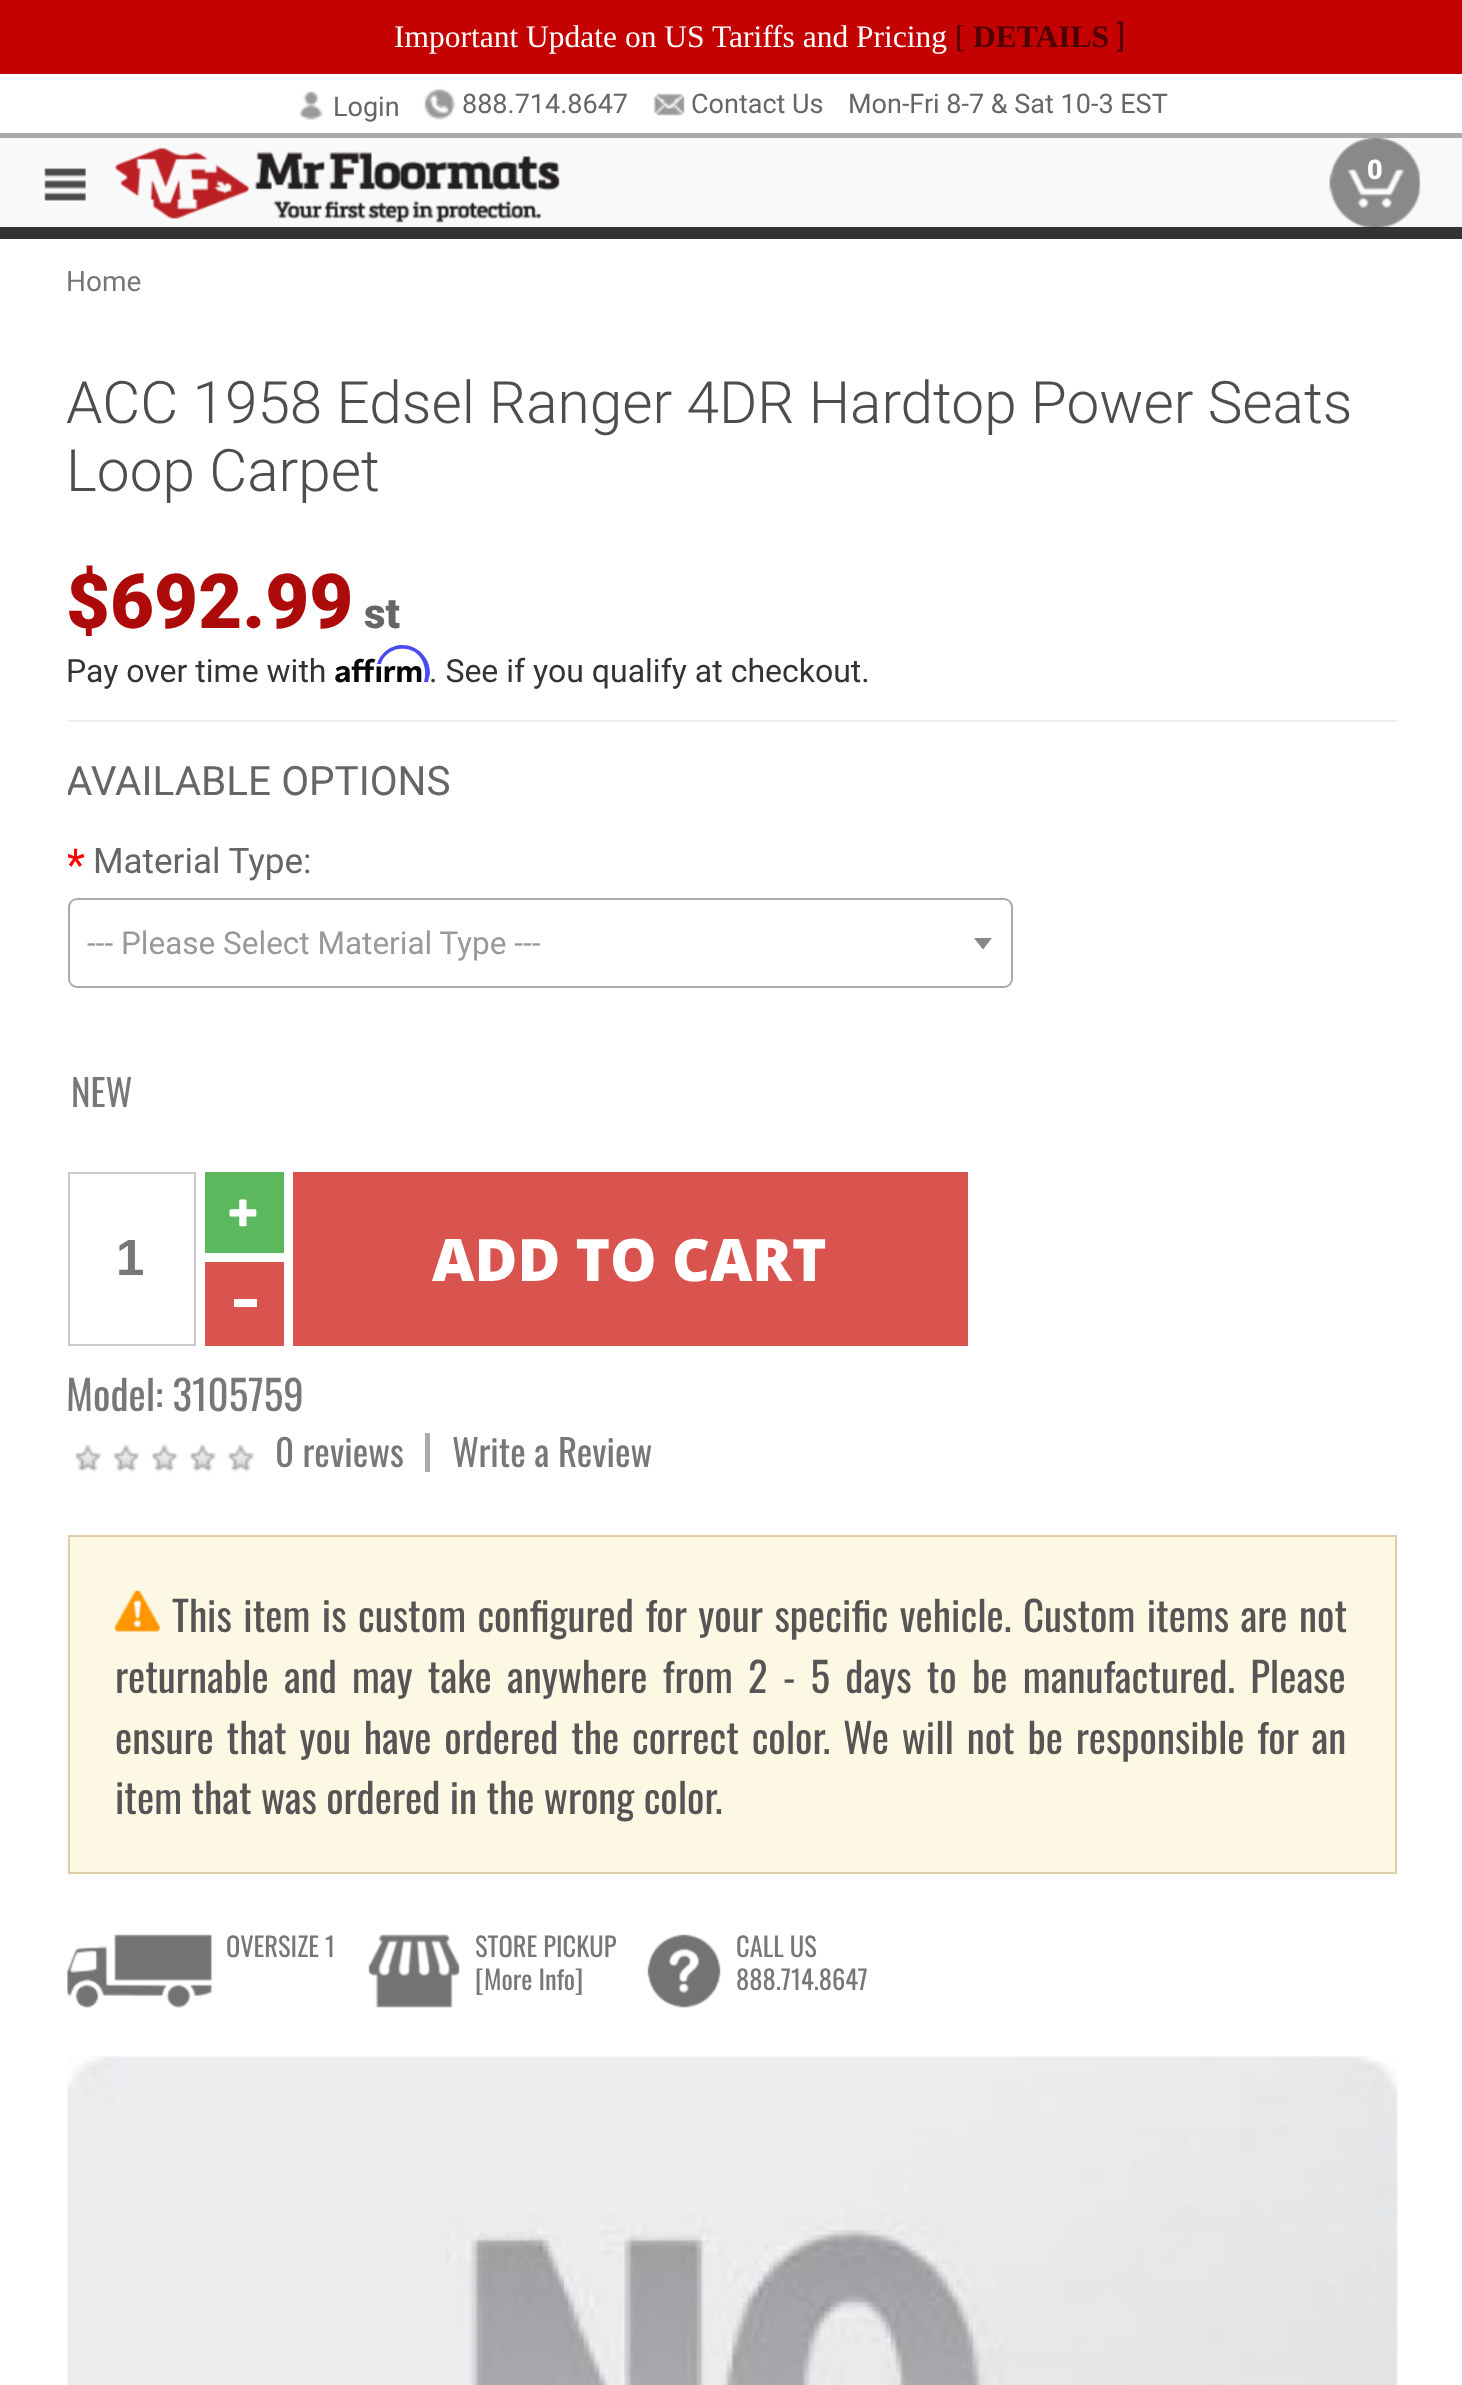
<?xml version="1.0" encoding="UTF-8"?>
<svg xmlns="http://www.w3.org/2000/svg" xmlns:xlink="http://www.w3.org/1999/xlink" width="1462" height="2385">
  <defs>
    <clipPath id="clip1"><rect x="68" y="558" width="1329" height="959" /></clipPath>
    <clipPath id="clip2"><rect x="68" y="828" width="1329" height="160" /></clipPath>
  </defs>
  <rect width="100%" height="100%" fill="#ffffff" />
  <rect y="133" width="1462" height="5" fill="#aaaaaa" />
  <rect width="1462" height="74" fill="#c40202" />
  <image x="299" y="91" width="24" height="29" xlink:href="image1.png" />
  <image x="423" y="87" width="32" height="33" xlink:href="image2.png" />
  <image x="653" y="93" width="32" height="23" xlink:href="image3.png" />
  <rect y="138" width="1462" height="89" fill="#f9f9f9" />
  <rect y="227" width="1462" height="12" fill="#333333" />
  <image x="44" y="168" width="42" height="33" xlink:href="image4.png" />
  <image x="114" y="147" width="446" height="76" xlink:href="image5.png" />
  <image x="1329" y="138" width="92" height="90" xlink:href="image6.png" />
  <image x="335" y="658" width="87" height="25" xlink:href="image7.png" />
  <path d="M 402 645 c -11 0 -22 8 -25 19 h 4 c 1 -5 5 -9 9 -12 c 5 -3 10 -4 16 -3 c 16 2 22 19 18 33 h 4 l 2 -9 c 0 -15 -12 -28 -28 -28 z" fill="#4a4af4" />
  <rect x="68" y="720" width="1329" height="2" fill="#eeeeee" />
  <rect x="69" y="899" width="943" height="88" rx="8" fill="none" stroke="#aaaaaa" stroke-width="2" />
  <path d="M 974 938 h 18 l -9 11.5 z" fill="#888888" />
  <rect x="69" y="1173" width="126" height="172" fill="none" stroke="#cccccc" stroke-width="2" />
  <rect x="205" y="1172" width="79" height="81" fill="#5cb85c" />
  <image x="229" y="1199" width="28" height="28" xlink:href="image8.png" />
  <rect x="205" y="1262" width="79" height="84" fill="#d9534f" />
  <rect x="234" y="1299" width="23" height="8" fill="#ffffff" />
  <rect x="293" y="1172" width="675" height="174" fill="#d9534f" />
  <image x="74" y="1444" width="181" height="29" xlink:href="image9.png" />
  <rect x="425" y="1433" width="5" height="39" fill="#aaaaaa" />
  <rect x="69" y="1536" width="1327" height="337" fill="#fcf8e3" stroke="#dfcda7" stroke-width="2" />
  <image x="114" y="1590" width="46" height="42" xlink:href="image10.png" />
  <image x="67" y="1934" width="146" height="74" xlink:href="image11.png" />
  <image x="368" y="1934" width="92" height="74" xlink:href="image12.png" />
  <image x="647" y="1934" width="74" height="74" xlink:href="image13.png" />
  <image x="67" y="2056" width="1331" height="329" xlink:href="image14.png" />
  <text x="394" y="47" style="font-family: Liberation Serif; font-size: 31.5px; fill: #ffffff">Important Update on US Tariffs and Pricing</text>
  <text x="955" y="47" style="font-family: Liberation Serif; font-size: 31.5px; fill: #4e0101">[</text>
  <text x="973" y="47" style="font-family: Liberation Serif; font-size: 31.5px; font-weight: bold; fill: #4e0101">DETAILS</text>
  <text x="1117" y="47" style="font-family: Roboto; font-size: 31.5px; fill: #4e0101">]</text>
  <text x="333" y="116" style="font-family: Roboto; font-size: 27px; fill: #666666">Login</text>
  <text x="462" y="113" style="font-family: Roboto; font-size: 27px; fill: #666666">888.714.8647</text>
  <text x="691" y="113" style="font-family: Roboto; font-size: 27px; fill: #666666">Contact Us</text>
  <text x="848" y="113" style="font-family: Roboto; font-size: 27px; fill: #666666">Mon-Fri 8-7 &amp; Sat 10-3 EST</text>
  <text x="1367" y="179" style="font-family: Roboto; font-size: 27px; font-weight: 900; fill: #ffffff">0</text>
  <text x="66" y="291" style="font-family: Roboto; font-size: 28px; fill: #777777">Home</text>
  <text x="66" y="423" style="font-family: Roboto; font-size: 58.5px; font-weight: 300; fill: #4d4d4d">ACC 1958 Edsel Ranger 4DR Hardtop Power Seats</text>
  <text x="66" y="491" style="font-family: Roboto; font-size: 58.5px; font-weight: 300; fill: #4d4d4d">Loop Carpet</text>
  <text x="66" y="628" style="font-family: Roboto; font-size: 76px; font-weight: 900; fill: #ad0a0a">$692.99</text>
  <text x="364" y="628" style="font-family: Roboto; font-size: 42px; font-weight: 900; fill: #666666">st</text>
  <text x="66" y="682" style="font-family: Roboto; font-size: 32px; fill: #333333">Pay over time with</text>
  <text x="429" y="682" style="font-family: Roboto; font-size: 32px; fill: #333333">. See if you qualify at checkout.</text>
  <g clip-path="url(#clip1)">
    <text x="66" y="795" style="font-family: Roboto; font-size: 40.5px; fill: #666666">AVAILABLE OPTIONS</text>
  </g>
  <g clip-path="url(#clip2)">
    <text x="66" y="880" style="font-family: Roboto; font-size: 44px; fill: #ff0000">*</text>
  </g>
  <text x="93" y="873" style="font-family: Roboto; font-size: 35px; fill: #666666">Material Type:</text>
  <text x="87" y="954" style="font-family: Roboto; font-size: 31.5px; fill: #999999">--- Please Select Material Type ---</text>
  <text x="71" y="1107" style="font-family: Oswald; font-size: 37px; fill: #777777">NEW</text>
  <text x="116" y="1275" style="font-family: Liberation Sans; font-size: 51px; font-weight: bold; fill: #777777">1</text>
  <text x="432" y="1281" style="font-family: Open Sans; font-size: 58.5px; font-weight: 800; fill: #ffffff">ADD TO CART</text>
  <text x="66" y="1411" style="font-family: Oswald; font-size: 40.95px; fill: #777777">Model: 3105759</text>
  <text x="275" y="1467" style="font-family: Oswald; font-size: 37px; fill: #777777">0 reviews</text>
  <text x="452" y="1467" style="font-family: Oswald; font-size: 37px; fill: #777777">Write a Review</text>
  <text x="172" y="1632" word-spacing="2.1" style="font-family: Oswald; font-size: 40.95px; fill: #555555">This item is custom configured for your specific vehicle. Custom items are not</text>
  <text x="115" y="1693" word-spacing="5.9" style="font-family: Oswald; font-size: 40.95px; fill: #555555">returnable and may take anywhere from 2 - 5 days to be manufactured. Please</text>
  <text x="115" y="1754" word-spacing="3.4" style="font-family: Oswald; font-size: 40.95px; fill: #555555">ensure that you have ordered the correct color. We will not be responsible for an</text>
  <text x="115" y="1814" style="font-family: Oswald; font-size: 40.95px; fill: #555555">item that was ordered in the wrong color.</text>
  <text x="226" y="1957" style="font-family: Oswald; font-size: 26.5px; fill: #777777">OVERSIZE 1</text>
  <text x="475" y="1957" style="font-family: Oswald; font-size: 26.5px; fill: #777777">STORE PICKUP</text>
  <text x="475" y="1990" style="font-family: Oswald; font-size: 26.5px; fill: #777777">[More Info]</text>
  <text x="736" y="1957" style="font-family: Oswald; font-size: 26.5px; fill: #777777">CALL US</text>
  <text x="736" y="1990" style="font-family: Oswald; font-size: 26.5px; fill: #777777">888.714.8647</text>
</svg>
